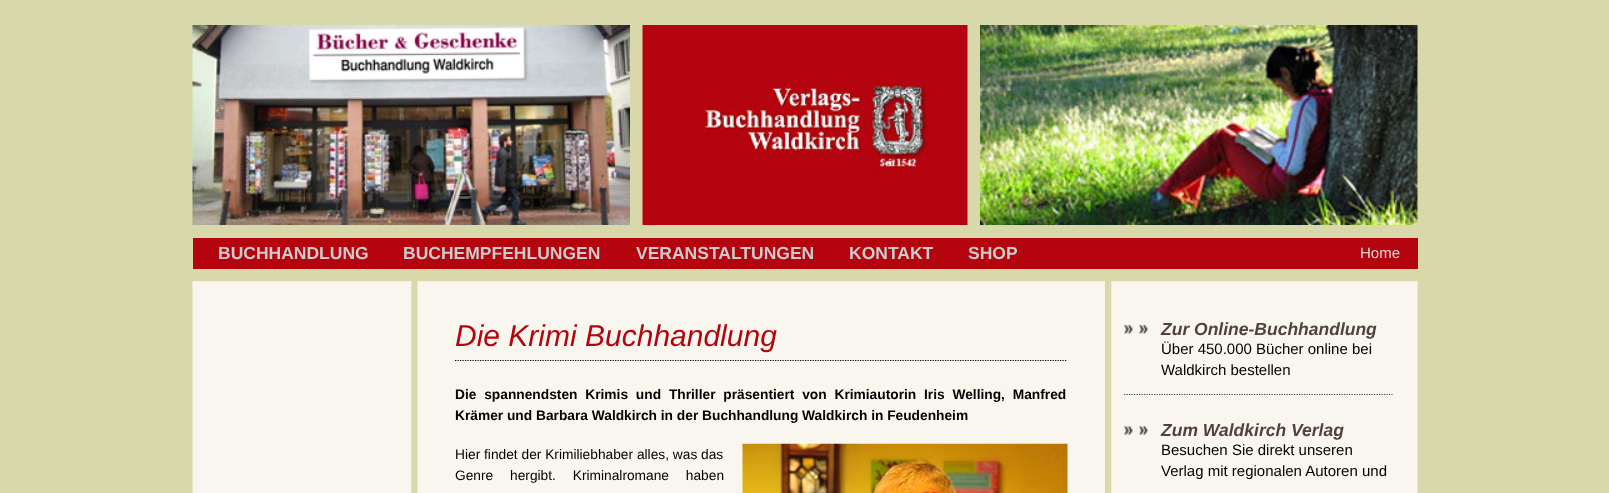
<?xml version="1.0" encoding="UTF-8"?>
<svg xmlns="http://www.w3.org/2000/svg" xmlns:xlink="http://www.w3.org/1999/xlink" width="1609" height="493">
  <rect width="100%" height="100%" fill="#d8d8ab" />
  <image x="192" y="25" width="438" height="200" xlink:href="image1.png" />
  <image x="642" y="25" width="326" height="200" xlink:href="image2.png" />
  <image x="980" y="25" width="438" height="200" xlink:href="image3.png" />
  <rect x="193" y="238" width="1225" height="31" fill="#b4050f" />
  <image x="192" y="281" width="1226" height="212" xlink:href="image4.png" />
  <path d="M 455 360.5 h 612.5" fill="none" stroke="#000000" stroke-width="1.2" stroke-dasharray="1.25 1.25" />
  <image x="742" y="443" width="326" height="50" xlink:href="image5.png" />
  <path d="M 1124 394.5 h 268.5" fill="none" stroke="#51423b" stroke-width="1.2" stroke-dasharray="1.25 1.25" />
  <image x="1123" y="324" width="31" height="10" xlink:href="image6.png" />
  <image x="1123" y="425" width="31" height="11" xlink:href="image7.png" />
  <text x="218" y="259" style="font-family: Liberation Sans; font-size: 17.5px; font-weight: bold; fill: #cbcbcb">BUCHHANDLUNG</text>
  <text x="403" y="259" style="font-family: Liberation Sans; font-size: 17.5px; font-weight: bold; fill: #cbcbcb">BUCHEMPFEHLUNGEN</text>
  <text x="636" y="259" style="font-family: Liberation Sans; font-size: 17.5px; font-weight: bold; fill: #cbcbcb">VERANSTALTUNGEN</text>
  <text x="849" y="259" style="font-family: Liberation Sans; font-size: 17.5px; font-weight: bold; fill: #cbcbcb">KONTAKT</text>
  <text x="968" y="259" style="font-family: Liberation Sans; font-size: 17.5px; font-weight: bold; fill: #cbcbcb">SHOP</text>
  <text x="1360" y="258" style="font-family: Liberation Sans; font-size: 15px; fill: #dddddd">Home</text>
  <text x="455" y="346" style="font-family: Liberation Sans; font-size: 30px; font-style: italic; fill: #b4050f">Die Krimi Buchhandlung</text>
  <text x="455" y="399" word-spacing="4" style="font-family: Liberation Sans; font-size: 13.75px; font-weight: bold; fill: #000000">Die spannendsten Krimis und Thriller präsentiert von Krimiautorin Iris Welling, Manfred</text>
  <text x="455" y="420" style="font-family: Liberation Sans; font-size: 13.75px; font-weight: bold; fill: #000000">Krämer und Barbara Waldkirch in der Buchhandlung Waldkirch in Feudenheim</text>
  <text x="455" y="459" style="font-family: Liberation Sans; font-size: 13.75px; fill: #000000">Hier findet der Krimiliebhaber alles, was das</text>
  <text x="455" y="480" word-spacing="13" style="font-family: Liberation Sans; font-size: 13.75px; fill: #000000">Genre hergibt. Kriminalromane haben</text>
  <text x="1161" y="335" style="font-family: Liberation Sans; font-size: 17.5px; font-weight: bold; font-style: italic; fill: #51423b">Zur Online-Buchhandlung</text>
  <text x="1161" y="354" style="font-family: Liberation Sans; font-size: 15px; fill: #000000">Über 450.000 Bücher online bei</text>
  <text x="1161" y="375" style="font-family: Liberation Sans; font-size: 15px; fill: #000000">Waldkirch bestellen</text>
  <text x="1161" y="436" style="font-family: Liberation Sans; font-size: 17.5px; font-weight: bold; font-style: italic; fill: #51423b">Zum Waldkirch Verlag</text>
  <text x="1161" y="455" style="font-family: Liberation Sans; font-size: 15px; fill: #000000">Besuchen Sie direkt unseren</text>
  <text x="1161" y="476" style="font-family: Liberation Sans; font-size: 15px; fill: #000000">Verlag mit regionalen Autoren und</text>
</svg>
